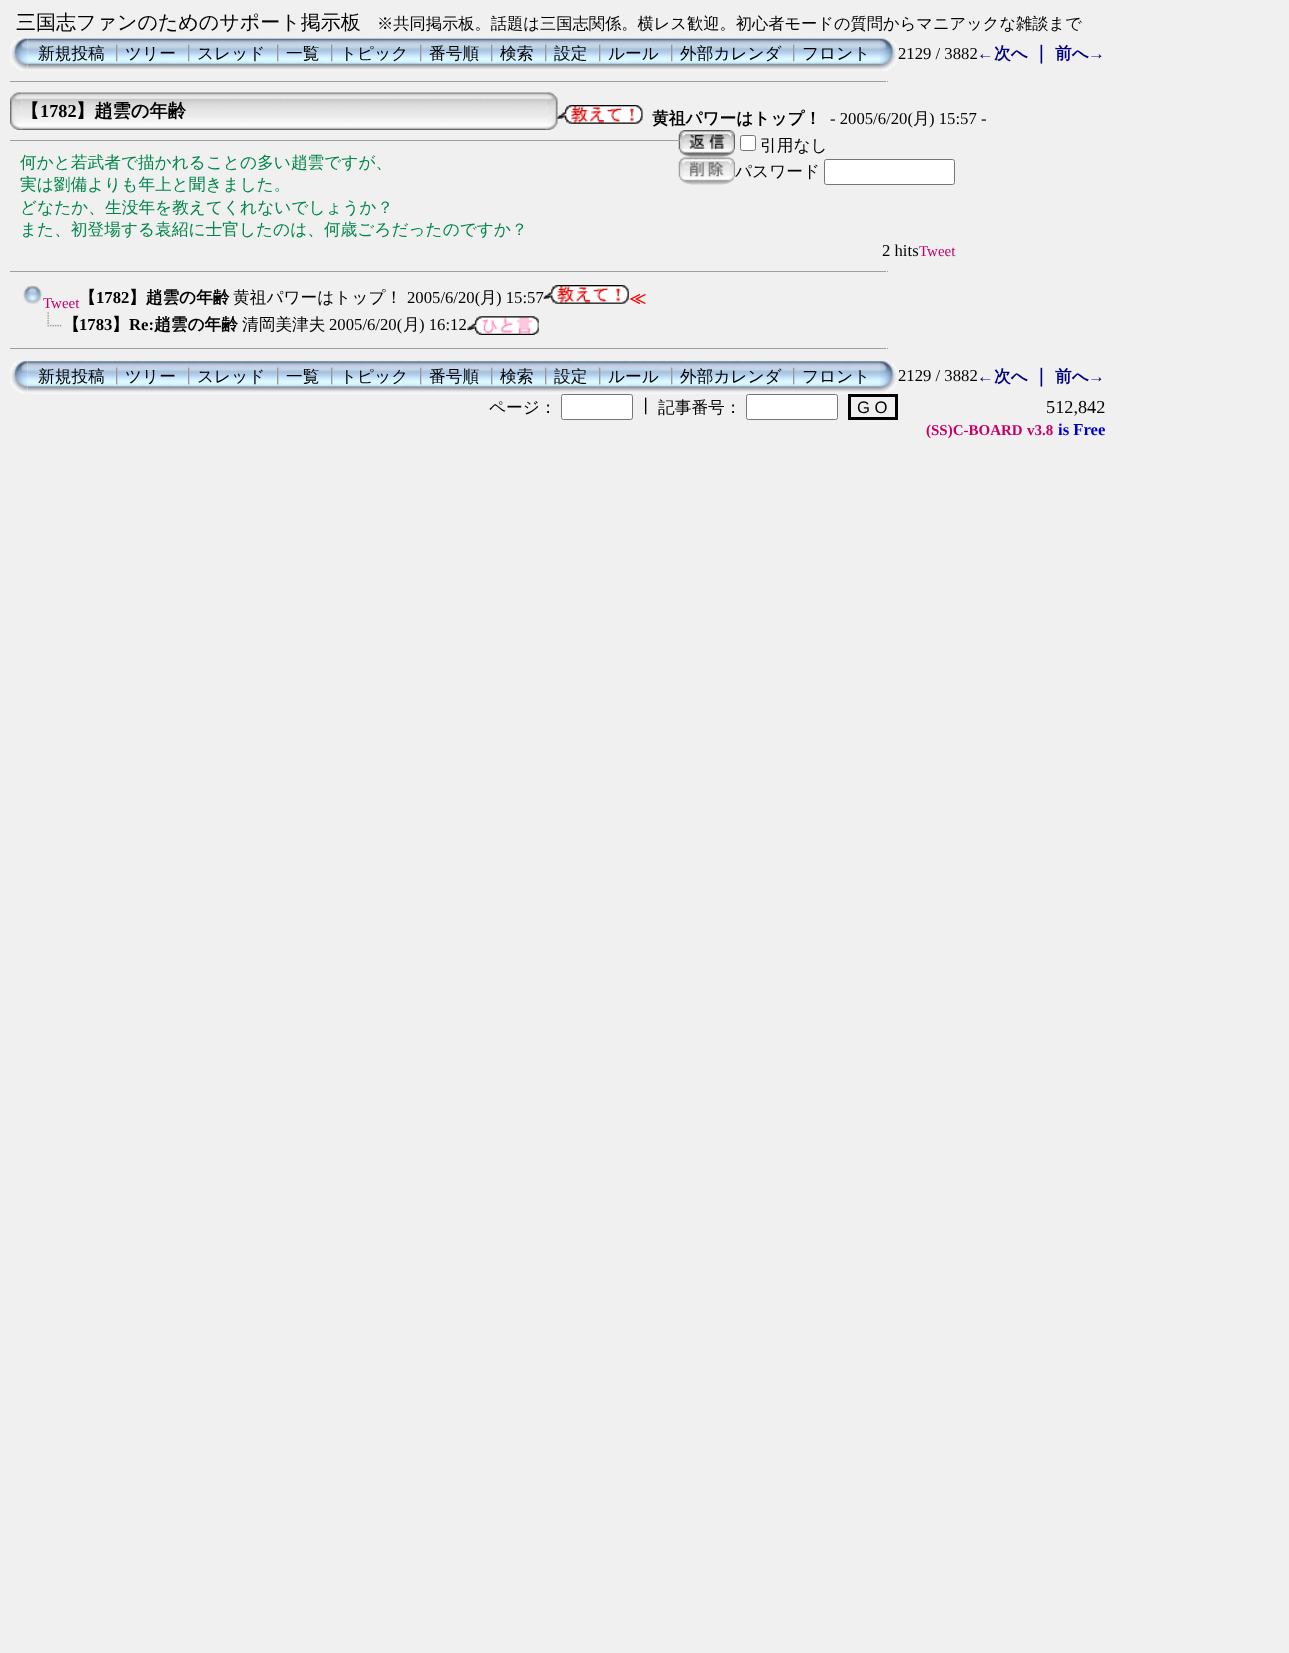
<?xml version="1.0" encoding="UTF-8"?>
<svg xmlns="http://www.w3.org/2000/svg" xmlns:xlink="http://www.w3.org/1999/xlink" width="1289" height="1653">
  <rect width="100%" height="100%" fill="#f0f0f0" />
  <image x="27" y="37" width="853" height="34" xlink:href="image2.png" />
  <image x="10" y="37" width="18" height="34" xlink:href="image1.png" />
  <image x="880" y="37" width="18" height="34" xlink:href="image3.png" />
  <rect x="10" y="81" width="878" height="1" fill="#9f9f9f" />
  <rect x="886" y="81" width="1" height="1" fill="#eeeeee" />
  <image x="21" y="92" width="526" height="38" xlink:href="image5.png" />
  <image x="10" y="92" width="12" height="38" xlink:href="image4.png" />
  <image x="546" y="92" width="12" height="38" xlink:href="image6.png" />
  <image x="557" y="105" width="86" height="19" xlink:href="image7.png" />
  <image x="678" y="130" width="57" height="28" xlink:href="image8.png" />
  <rect x="10" y="140" width="671" height="1" fill="#9f9f9f" />
  <rect x="680" y="140" width="1" height="1" fill="#eeeeee" />
  <rect x="740.5" y="135.5" width="15" height="15" rx="2" fill="#ffffff" stroke="#767676" />
  <image x="678" y="157" width="57" height="28" xlink:href="image9.png" />
  <rect x="824.5" y="159.5" width="130" height="25" rx="2" fill="#ffffff" stroke="#767676" />
  <rect x="10" y="271" width="878" height="1" fill="#9f9f9f" />
  <rect x="886" y="271" width="1" height="1" fill="#eeeeee" />
  <image x="22" y="285" width="21" height="19" xlink:href="image10.png" />
  <image x="47" y="312" width="15" height="15" xlink:href="image12.png" />
  <image x="467" y="316" width="72" height="19" xlink:href="image13.png" />
  <rect x="10" y="348" width="878" height="1" fill="#9f9f9f" />
  <rect x="886" y="348" width="1" height="1" fill="#eeeeee" />
  <image x="27" y="360" width="853" height="34" xlink:href="image15.png" />
  <image x="10" y="360" width="18" height="34" xlink:href="image14.png" />
  <image x="880" y="360" width="18" height="34" xlink:href="image16.png" />
  <rect x="561.5" y="394.5" width="71" height="25" rx="2" fill="#ffffff" stroke="#767676" />
  <rect x="746.5" y="394.5" width="91" height="25" rx="2" fill="#ffffff" stroke="#767676" />
  <rect x="849.5" y="395.5" width="47" height="23" fill="none" stroke="#000000" stroke-width="3" />
  <text x="16" y="29" style="font-family: WenQuanYi Zen Hei; font-size: 20px; font-weight: 500; fill: #000000">三国志ファンのためのサポート掲示板</text>
  <text x="377" y="29" style="font-family: WenQuanYi Zen Hei; font-size: 16.25px; font-weight: 500; fill: #000000">※共同掲示板。話題は三国志関係。横レス歓迎。初心者モードの質問からマニアックな雑談まで</text>
  <text x="38" y="59" style="font-family: WenQuanYi Zen Hei; font-size: 16.7px; font-weight: 500; fill: #000000">新規投稿</text>
  <text x="108" y="59" style="font-family: WenQuanYi Zen Hei; font-size: 16.7px; font-weight: 500; fill: #999999">┃</text>
  <text x="125" y="59" style="font-family: WenQuanYi Zen Hei; font-size: 16.7px; font-weight: 500; fill: #000000">ツリー</text>
  <text x="180" y="59" style="font-family: WenQuanYi Zen Hei; font-size: 16.7px; font-weight: 500; fill: #999999">┃</text>
  <text x="197" y="59" style="font-family: WenQuanYi Zen Hei; font-size: 16.7px; font-weight: 500; fill: #000000">スレッド</text>
  <text x="269" y="59" style="font-family: WenQuanYi Zen Hei; font-size: 16.7px; font-weight: 500; fill: #999999">┃</text>
  <text x="286" y="59" style="font-family: WenQuanYi Zen Hei; font-size: 16.7px; font-weight: 500; fill: #000000">一覧</text>
  <text x="323" y="59" style="font-family: WenQuanYi Zen Hei; font-size: 16.7px; font-weight: 500; fill: #999999">┃</text>
  <text x="340" y="59" style="font-family: WenQuanYi Zen Hei; font-size: 16.7px; font-weight: 500; fill: #000000">トピック</text>
  <text x="412" y="59" style="font-family: WenQuanYi Zen Hei; font-size: 16.7px; font-weight: 500; fill: #999999">┃</text>
  <text x="429" y="59" style="font-family: WenQuanYi Zen Hei; font-size: 16.7px; font-weight: 500; fill: #000000">番号順</text>
  <text x="483" y="59" style="font-family: WenQuanYi Zen Hei; font-size: 16.7px; font-weight: 500; fill: #999999">┃</text>
  <text x="500" y="59" style="font-family: WenQuanYi Zen Hei; font-size: 16.7px; font-weight: 500; fill: #000000">検索</text>
  <text x="537" y="59" style="font-family: WenQuanYi Zen Hei; font-size: 16.7px; font-weight: 500; fill: #999999">┃</text>
  <text x="554" y="59" style="font-family: WenQuanYi Zen Hei; font-size: 16.7px; font-weight: 500; fill: #000000">設定</text>
  <text x="591" y="59" style="font-family: WenQuanYi Zen Hei; font-size: 16.7px; font-weight: 500; fill: #999999">┃</text>
  <text x="608" y="59" style="font-family: WenQuanYi Zen Hei; font-size: 16.7px; font-weight: 500; fill: #000000">ルール</text>
  <text x="663" y="59" style="font-family: WenQuanYi Zen Hei; font-size: 16.7px; font-weight: 500; fill: #999999">┃</text>
  <text x="680" y="59" style="font-family: WenQuanYi Zen Hei; font-size: 16.7px; font-weight: 500; fill: #000000">外部カレンダ</text>
  <text x="785" y="59" style="font-family: WenQuanYi Zen Hei; font-size: 16.7px; font-weight: 500; fill: #999999">┃</text>
  <text x="802" y="59" style="font-family: WenQuanYi Zen Hei; font-size: 16.7px; font-weight: 500; fill: #000000">フロント</text>
  <text x="898" y="59" style="font-family: Liberation Serif; font-size: 16.7px; fill: #000000">2129 / 3882</text>
  <text x="977" y="59" style="font-family: Liberation Serif; font-size: 16.7px; font-weight: bold; fill: #000080">←</text>
  <text x="994" y="59" style="font-family: WenQuanYi Zen Hei; font-size: 16.7px; font-weight: bold; fill: #000080">次へ</text>
  <text x="1032" y="59" style="font-family: WenQuanYi Zen Hei; font-size: 18.25px; font-weight: bold; fill: #000080">｜</text>
  <text x="1055" y="59" style="font-family: WenQuanYi Zen Hei; font-size: 16.7px; font-weight: bold; fill: #000080">前へ</text>
  <text x="1088" y="59" style="font-family: Liberation Serif; font-size: 16.7px; font-weight: bold; fill: #000080">→</text>
  <text x="21" y="117" style="font-family: WenQuanYi Zen Hei; font-size: 18.25px; font-weight: bold; fill: #000000">【</text>
  <text x="40" y="117" style="font-family: Liberation Serif; font-size: 18.25px; font-weight: bold; fill: #000000">1782</text>
  <text x="76" y="117" style="font-family: WenQuanYi Zen Hei; font-size: 18.25px; font-weight: bold; fill: #000000">】趙雲の年齢</text>
  <text x="652" y="124" style="font-family: WenQuanYi Zen Hei; font-size: 16.7px; font-weight: bold; fill: #000000">黄祖パワーはトップ！</text>
  <text x="830" y="124" style="font-family: Liberation Serif; font-size: 16.7px; fill: #000000">- 2005/6/20(</text>
  <text x="913" y="124" style="font-family: WenQuanYi Zen Hei; font-size: 16.7px; font-weight: 500; fill: #000000">月</text>
  <text x="929" y="124" style="font-family: Liberation Serif; font-size: 16.7px; fill: #000000">) 15:57 -</text>
  <text x="20" y="168" style="font-family: WenQuanYi Zen Hei; font-size: 16.7px; font-weight: 500; fill: #008649">何かと若武者で描かれることの多い趙雲ですが、</text>
  <text x="20" y="190" style="font-family: WenQuanYi Zen Hei; font-size: 16.7px; font-weight: 500; fill: #008649">実は劉備よりも年上と聞きました。</text>
  <text x="20" y="213" style="font-family: WenQuanYi Zen Hei; font-size: 16.7px; font-weight: 500; fill: #008649">どなたか、生没年を教えてくれないでしょうか？</text>
  <text x="20" y="235" style="font-family: WenQuanYi Zen Hei; font-size: 16.7px; font-weight: 500; fill: #008649">また、初登場する袁紹に士官したのは、何歳ごろだったのですか？</text>
  <text x="760" y="151" style="font-family: WenQuanYi Zen Hei; font-size: 16.7px; font-weight: 500; fill: #000000">引用なし</text>
  <text x="735" y="177" style="font-family: WenQuanYi Zen Hei; font-size: 16.7px; font-weight: 500; fill: #000000">パスワード</text>
  <text x="882" y="256" style="font-family: Liberation Serif; font-size: 16.7px; fill: #000000">2 hits</text>
  <text x="919" y="256" style="font-family: Liberation Serif; font-size: 15px; fill: #c50067">Tweet</text>
  <text x="43" y="308" style="font-family: Liberation Serif; font-size: 15px; fill: #c50067">Tweet</text>
  <text x="79" y="303" style="font-family: WenQuanYi Zen Hei; font-size: 16.7px; font-weight: bold; fill: #000000">【</text>
  <text x="96" y="303" style="font-family: Liberation Serif; font-size: 16.7px; font-weight: bold; fill: #000000">1782</text>
  <text x="129" y="303" style="font-family: WenQuanYi Zen Hei; font-size: 16.7px; font-weight: bold; fill: #000000">】趙雲の年齢</text>
  <text x="233" y="303" style="font-family: WenQuanYi Zen Hei; font-size: 16.7px; font-weight: 500; fill: #000000">黄祖パワーはトップ！</text>
  <text x="407" y="303" style="font-family: Liberation Serif; font-size: 16.7px; fill: #000000">2005/6/20(</text>
  <text x="480" y="303" style="font-family: WenQuanYi Zen Hei; font-size: 16.7px; font-weight: 500; fill: #000000">月</text>
  <text x="496" y="303" style="font-family: Liberation Serif; font-size: 16.7px; fill: #000000">) 15:57</text>
  <image x="543" y="285" width="86" height="19" xlink:href="image11.png" />
  <text x="629" y="304" style="font-family: WenQuanYi Zen Hei; font-size: 16.7px; font-weight: bold; fill: #ff0000">≪</text>
  <text x="63" y="330" style="font-family: WenQuanYi Zen Hei; font-size: 16.7px; font-weight: bold; fill: #000000">【</text>
  <text x="79" y="330" style="font-family: Liberation Serif; font-size: 16.7px; font-weight: bold; fill: #000000">1783</text>
  <text x="112" y="330" style="font-family: WenQuanYi Zen Hei; font-size: 16.7px; font-weight: bold; fill: #000000">】</text>
  <text x="129" y="330" style="font-family: Liberation Serif; font-size: 16.7px; font-weight: bold; fill: #000000">Re:</text>
  <text x="154" y="330" style="font-family: WenQuanYi Zen Hei; font-size: 16.7px; font-weight: bold; fill: #000000">趙雲の年齢</text>
  <text x="242" y="330" style="font-family: WenQuanYi Zen Hei; font-size: 16.7px; font-weight: 500; fill: #000000">清岡美津夫</text>
  <text x="329" y="330" style="font-family: Liberation Serif; font-size: 16.7px; fill: #000000">2005/6/20(</text>
  <text x="403" y="330" style="font-family: WenQuanYi Zen Hei; font-size: 16.7px; font-weight: 500; fill: #000000">月</text>
  <text x="419" y="330" style="font-family: Liberation Serif; font-size: 16.7px; fill: #000000">) 16:12</text>
  <text x="38" y="382" style="font-family: WenQuanYi Zen Hei; font-size: 16.7px; font-weight: 500; fill: #000000">新規投稿</text>
  <text x="108" y="382" style="font-family: WenQuanYi Zen Hei; font-size: 16.7px; font-weight: 500; fill: #999999">┃</text>
  <text x="125" y="382" style="font-family: WenQuanYi Zen Hei; font-size: 16.7px; font-weight: 500; fill: #000000">ツリー</text>
  <text x="180" y="382" style="font-family: WenQuanYi Zen Hei; font-size: 16.7px; font-weight: 500; fill: #999999">┃</text>
  <text x="197" y="382" style="font-family: WenQuanYi Zen Hei; font-size: 16.7px; font-weight: 500; fill: #000000">スレッド</text>
  <text x="269" y="382" style="font-family: WenQuanYi Zen Hei; font-size: 16.7px; font-weight: 500; fill: #999999">┃</text>
  <text x="286" y="382" style="font-family: WenQuanYi Zen Hei; font-size: 16.7px; font-weight: 500; fill: #000000">一覧</text>
  <text x="323" y="382" style="font-family: WenQuanYi Zen Hei; font-size: 16.7px; font-weight: 500; fill: #999999">┃</text>
  <text x="340" y="382" style="font-family: WenQuanYi Zen Hei; font-size: 16.7px; font-weight: 500; fill: #000000">トピック</text>
  <text x="412" y="382" style="font-family: WenQuanYi Zen Hei; font-size: 16.7px; font-weight: 500; fill: #999999">┃</text>
  <text x="429" y="382" style="font-family: WenQuanYi Zen Hei; font-size: 16.7px; font-weight: 500; fill: #000000">番号順</text>
  <text x="483" y="382" style="font-family: WenQuanYi Zen Hei; font-size: 16.7px; font-weight: 500; fill: #999999">┃</text>
  <text x="500" y="382" style="font-family: WenQuanYi Zen Hei; font-size: 16.7px; font-weight: 500; fill: #000000">検索</text>
  <text x="537" y="382" style="font-family: WenQuanYi Zen Hei; font-size: 16.7px; font-weight: 500; fill: #999999">┃</text>
  <text x="554" y="382" style="font-family: WenQuanYi Zen Hei; font-size: 16.7px; font-weight: 500; fill: #000000">設定</text>
  <text x="591" y="382" style="font-family: WenQuanYi Zen Hei; font-size: 16.7px; font-weight: 500; fill: #999999">┃</text>
  <text x="608" y="382" style="font-family: WenQuanYi Zen Hei; font-size: 16.7px; font-weight: 500; fill: #000000">ルール</text>
  <text x="663" y="382" style="font-family: WenQuanYi Zen Hei; font-size: 16.7px; font-weight: 500; fill: #999999">┃</text>
  <text x="680" y="382" style="font-family: WenQuanYi Zen Hei; font-size: 16.7px; font-weight: 500; fill: #000000">外部カレンダ</text>
  <text x="785" y="382" style="font-family: WenQuanYi Zen Hei; font-size: 16.7px; font-weight: 500; fill: #999999">┃</text>
  <text x="802" y="382" style="font-family: WenQuanYi Zen Hei; font-size: 16.7px; font-weight: 500; fill: #000000">フロント</text>
  <text x="898" y="381" style="font-family: Liberation Serif; font-size: 16.7px; fill: #000000">2129 / 3882</text>
  <text x="977" y="382" style="font-family: Liberation Serif; font-size: 16.7px; font-weight: bold; fill: #000080">←</text>
  <text x="994" y="382" style="font-family: WenQuanYi Zen Hei; font-size: 16.7px; font-weight: bold; fill: #000080">次へ</text>
  <text x="1032" y="382" style="font-family: WenQuanYi Zen Hei; font-size: 18.25px; font-weight: bold; fill: #000080">｜</text>
  <text x="1055" y="382" style="font-family: WenQuanYi Zen Hei; font-size: 16.7px; font-weight: bold; fill: #000080">前へ</text>
  <text x="1088" y="382" style="font-family: Liberation Serif; font-size: 16.7px; font-weight: bold; fill: #000080">→</text>
  <text x="489" y="413" style="font-family: WenQuanYi Zen Hei; font-size: 16.7px; font-weight: 500; fill: #000000">ページ：</text>
  <text x="637" y="412" style="font-family: WenQuanYi Zen Hei; font-size: 16.7px; font-weight: 500; fill: #000000">┃</text>
  <text x="658" y="413" style="font-family: WenQuanYi Zen Hei; font-size: 16.7px; font-weight: 500; fill: #000000">記事番号：</text>
  <text x="857" y="413" style="font-family: Liberation Sans; font-size: 16.7px; fill: #000000">G O</text>
  <text x="1046" y="413" style="font-family: Liberation Serif; font-size: 18.25px; fill: #000000">512,842</text>
  <text x="926" y="435" style="font-family: Liberation Serif; font-size: 15px; font-weight: bold; fill: #c50067">(SS)C-BOARD</text>
  <text x="1027" y="435" style="font-family: Liberation Serif; font-size: 15px; font-weight: bold; fill: #c50067">v3.8</text>
  <text x="1058" y="435" style="font-family: Liberation Serif; font-size: 16.7px; font-weight: bold; fill: #0000cc">is Free</text>
</svg>
